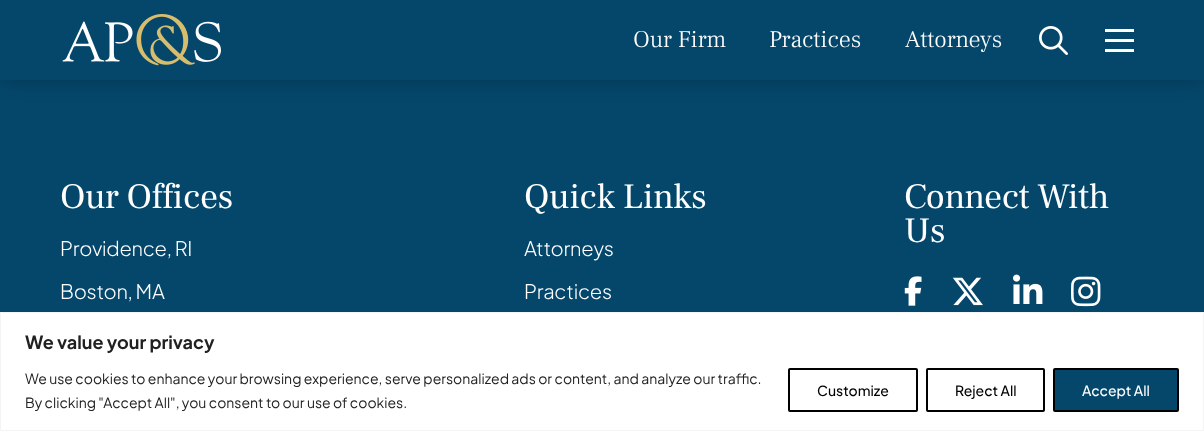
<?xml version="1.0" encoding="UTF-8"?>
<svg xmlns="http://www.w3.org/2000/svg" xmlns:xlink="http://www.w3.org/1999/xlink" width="1204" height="431">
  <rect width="100%" height="100%" fill="#05476b" />
  <rect width="1204" height="80" fill="#000000" fill-opacity="0.25" filter="blur(10px)" />
  <rect width="1204" height="80" fill="#05476b" />
  <image x="62" y="14" width="159" height="52" xlink:href="image1.png" />
  <image x="1039" y="26" width="29" height="29" xlink:href="image2.png" />
  <rect x="1105" y="29" width="29" height="3" fill="#ffffff" />
  <rect x="1105" y="39" width="29" height="3" fill="#ffffff" />
  <rect x="1105" y="49" width="29" height="3" fill="#ffffff" />
  <image x="904" y="276" width="18" height="30" xlink:href="image3.png" />
  <image x="952" y="277" width="31" height="29" xlink:href="image4.png" />
  <image x="1013" y="274" width="30" height="30" xlink:href="image5.png" />
  <image x="1071" y="276" width="30" height="31" xlink:href="image6.png" />
  <rect x="0.5" y="312.5" width="1203" height="118" fill="#ffffff" stroke="#f4f4f4" />
  <rect x="789" y="369" width="128" height="42" rx="1" fill="none" stroke="#000000" stroke-width="2" />
  <rect x="927" y="369" width="117" height="42" rx="1" fill="none" stroke="#000000" stroke-width="2" />
  <rect x="1054" y="369" width="124" height="42" rx="1" fill="#05476b" stroke="#000000" stroke-width="2" />
  <text x="633" y="47" style="font-family: Frank Ruhl Libre; font-size: 24px; font-weight: 300; fill: #ffffff">Our Firm</text>
  <text x="769" y="47" style="font-family: Frank Ruhl Libre; font-size: 24px; font-weight: 300; fill: #ffffff">Practices</text>
  <text x="905" y="47" style="font-family: Frank Ruhl Libre; font-size: 24px; font-weight: 300; fill: #ffffff">Attorneys</text>
  <text x="60" y="208" style="font-family: Frank Ruhl Libre; font-size: 35.75px; letter-spacing: -0.4px; fill: #ffffff">Our Offices</text>
  <text x="60" y="256" style="font-family: Plus Jakarta Sans; font-size: 20px; font-weight: 300; letter-spacing: -0.25px; fill: #ffffff">Providence, RI</text>
  <text x="60" y="299" style="font-family: Plus Jakarta Sans; font-size: 20px; font-weight: 300; letter-spacing: -0.25px; fill: #ffffff">Boston, MA</text>
  <text x="524" y="208" style="font-family: Frank Ruhl Libre; font-size: 35.75px; letter-spacing: -0.4px; fill: #ffffff">Quick Links</text>
  <text x="524" y="256" style="font-family: Plus Jakarta Sans; font-size: 20px; font-weight: 300; letter-spacing: -0.25px; fill: #ffffff">Attorneys</text>
  <text x="524" y="299" style="font-family: Plus Jakarta Sans; font-size: 20px; font-weight: 300; letter-spacing: -0.25px; fill: #ffffff">Practices</text>
  <text x="904" y="208" style="font-family: Frank Ruhl Libre; font-size: 35.75px; letter-spacing: -0.4px; fill: #ffffff">Connect With</text>
  <text x="904" y="242" style="font-family: Frank Ruhl Libre; font-size: 35.75px; letter-spacing: -0.4px; fill: #ffffff">Us</text>
  <text x="25" y="349" style="font-family: Plus Jakarta Sans; font-size: 18px; font-weight: bold; fill: #212121">We value your privacy</text>
  <text x="25" y="384" style="font-family: Plus Jakarta Sans; font-size: 14px; fill: #212121">We use cookies to enhance your browsing experience, serve personalized ads or content, and analyze our traffic.</text>
  <text x="25" y="408" style="font-family: Plus Jakarta Sans; font-size: 14px; fill: #212121">By clicking "Accept All", you consent to our use of cookies.</text>
  <text x="817" y="396" style="font-family: Plus Jakarta Sans; font-size: 14px; font-weight: 500; fill: #000000">Customize</text>
  <text x="955" y="396" style="font-family: Plus Jakarta Sans; font-size: 14px; font-weight: 500; fill: #000000">Reject All</text>
  <text x="1082" y="396" style="font-family: Plus Jakarta Sans; font-size: 14px; font-weight: 500; fill: #ffffff">Accept All</text>
</svg>
